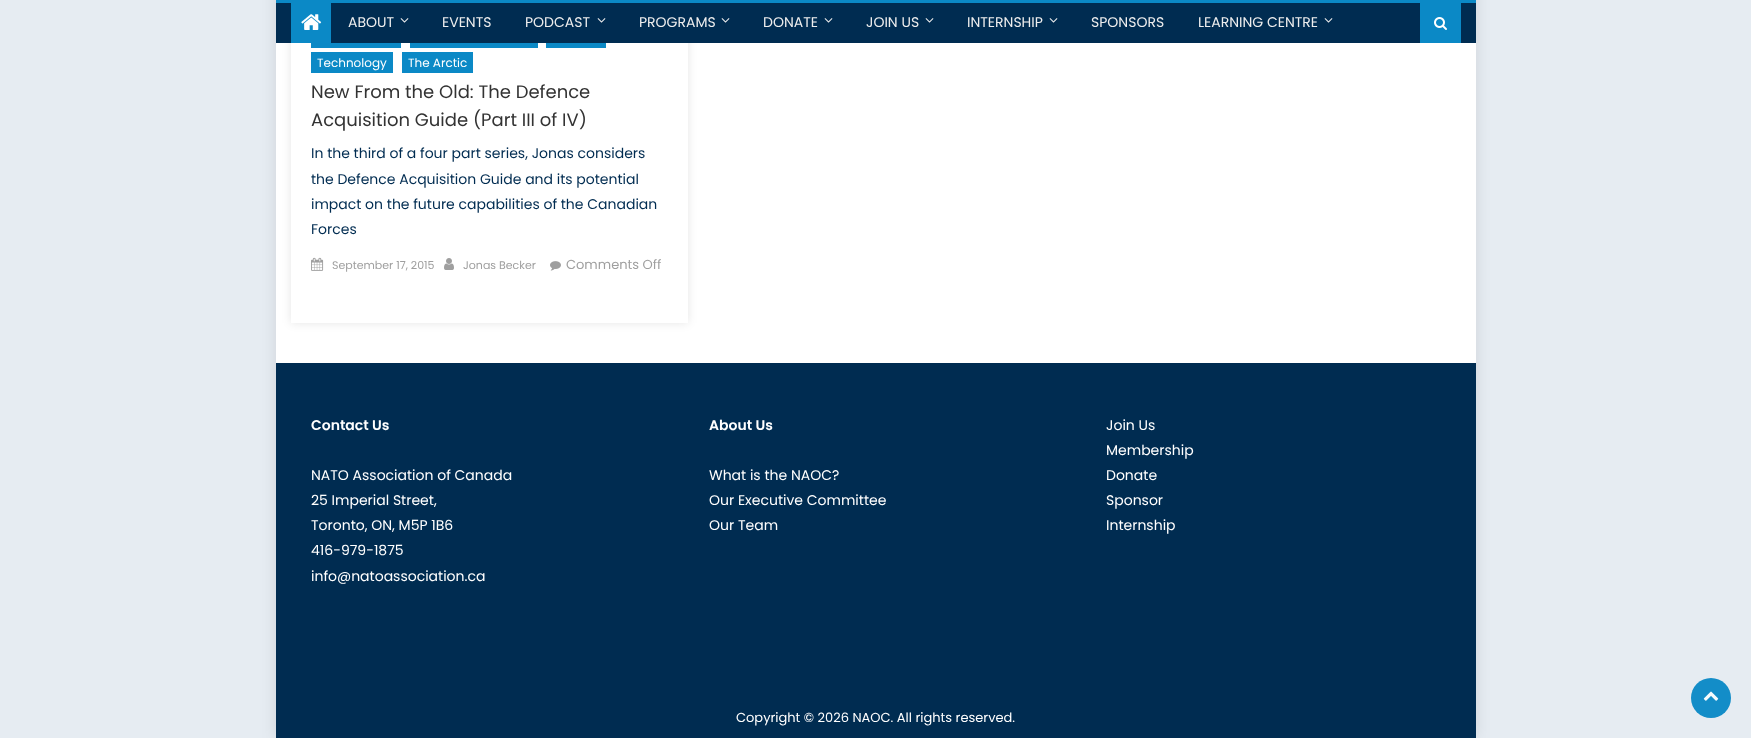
<?xml version="1.0" encoding="UTF-8"?>
<svg xmlns="http://www.w3.org/2000/svg" xmlns:xlink="http://www.w3.org/1999/xlink" width="1751" height="738">
  <defs>
    <clipPath id="clip1"><path d="M 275 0 h 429 v 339 h -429 z m 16 -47 h 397 v 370 h -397 z" clip-rule="evenodd" /></clipPath>
  </defs>
  <rect width="100%" height="100%" fill="#e6ecf2" />
  <rect x="276" y="-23" width="1200" height="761" fill="#000000" fill-opacity="0.1" filter="blur(7.5px)" />
  <rect x="276" y="43" width="1200" height="320" fill="#ffffff" />
  <g clip-path="url(#clip1)">
    <rect x="291" y="-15" width="397" height="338" fill="#000000" fill-opacity="0.1" filter="blur(5px)" />
  </g>
  <rect x="276" y="3" width="1200" height="40" fill="#002c51" />
  <rect x="276" width="1200" height="3" fill="#0b89c6" />
  <rect x="291" y="3" width="40" height="40" fill="#0b89c6" />
  <image x="301" y="14" width="21" height="16" xlink:href="image1.png" />
  <image x="400" y="18" width="9" height="5" xlink:href="image2.png" />
  <image x="597" y="18" width="9" height="5" xlink:href="image2.png" />
  <image x="721" y="18" width="9" height="5" xlink:href="image2.png" />
  <image x="824" y="18" width="9" height="5" xlink:href="image2.png" />
  <image x="925" y="18" width="9" height="5" xlink:href="image2.png" />
  <image x="1049" y="18" width="9" height="5" xlink:href="image2.png" />
  <image x="1324" y="18" width="9" height="5" xlink:href="image2.png" />
  <rect x="1420" y="3" width="41" height="40" fill="#0b89c6" />
  <image x="1434" y="17" width="13" height="13" xlink:href="image3.png" />
  <rect x="311" y="43" width="90" height="5" fill="#0b89c6" />
  <rect x="410" y="43" width="128" height="5" fill="#0b89c6" />
  <rect x="546" y="43" width="60" height="5" fill="#0b89c6" />
  <rect x="311" y="52" width="82" height="21" fill="#0b89c6" />
  <rect x="402" y="52" width="71" height="21" fill="#0b89c6" />
  <image x="311" y="257" width="13" height="14" xlink:href="image4.png" />
  <image x="444" y="258" width="10" height="12" xlink:href="image5.png" />
  <image x="550" y="261" width="11" height="10" xlink:href="image6.png" />
  <rect x="276" y="363" width="1200" height="375" fill="#002c51" />
  <circle cx="1711" cy="698" r="20" fill="#138dc8" />
  <image x="1703" y="691" width="16" height="10" xlink:href="image7.png" />
  <text x="348" y="27" style="font-family: Poppins; font-size: 14px; fill: #eeeeee">ABOUT</text>
  <text x="442" y="27" style="font-family: Poppins; font-size: 14px; fill: #eeeeee">EVENTS</text>
  <text x="525" y="27" style="font-family: Poppins; font-size: 14px; fill: #eeeeee">PODCAST</text>
  <text x="639" y="27" style="font-family: Poppins; font-size: 14px; fill: #eeeeee">PROGRAMS</text>
  <text x="763" y="27" style="font-family: Poppins; font-size: 14px; fill: #eeeeee">DONATE</text>
  <text x="866" y="27" style="font-family: Poppins; font-size: 14px; fill: #eeeeee">JOIN US</text>
  <text x="967" y="27" style="font-family: Poppins; font-size: 14px; fill: #eeeeee">INTERNSHIP</text>
  <text x="1091" y="27" style="font-family: Poppins; font-size: 14px; fill: #eeeeee">SPONSORS</text>
  <text x="1198" y="27" style="font-family: Poppins; font-size: 14px; fill: #eeeeee">LEARNING CENTRE</text>
  <text x="317" y="67" style="font-family: Poppins; font-size: 12px; fill: #ffffff">Technology</text>
  <text x="408" y="67" style="font-family: Poppins; font-size: 12px; fill: #ffffff">The Arctic</text>
  <text x="311" y="98" style="font-family: Poppins; font-size: 18px; fill: #333333">New From the Old: The Defence</text>
  <text x="311" y="126" style="font-family: Poppins; font-size: 18px; fill: #333333">Acquisition Guide (Part III of IV)</text>
  <text x="311" y="158" style="font-family: Poppins; font-size: 14px; fill: #002c51">In the third of a four part series, Jonas considers</text>
  <text x="311" y="184" style="font-family: Poppins; font-size: 14px; fill: #002c51">the Defence Acquisition Guide and its potential</text>
  <text x="311" y="209" style="font-family: Poppins; font-size: 14px; fill: #002c51">impact on the future capabilities of the Canadian</text>
  <text x="311" y="234" style="font-family: Poppins; font-size: 14px; fill: #002c51">Forces</text>
  <text x="332" y="269" style="font-family: Poppins; font-size: 11px; fill: #9f9f9f">September 17, 2015</text>
  <text x="463" y="269" style="font-family: Poppins; font-size: 11px; fill: #9f9f9f">Jonas Becker</text>
  <text x="566" y="269" style="font-family: Poppins; font-size: 13px; fill: #9f9f9f">Comments Off</text>
  <text x="311" y="430" style="font-family: Poppins; font-size: 14px; font-weight: 600; fill: #ffffff">Contact Us</text>
  <text x="311" y="480" style="font-family: Poppins; font-size: 14px; fill: #ffffff">NATO Association of Canada</text>
  <text x="311" y="505" style="font-family: Poppins; font-size: 14px; fill: #ffffff">25 Imperial Street,</text>
  <text x="311" y="530" style="font-family: Poppins; font-size: 14px; fill: #ffffff">Toronto, ON, M5P 1B6</text>
  <text x="311" y="555" style="font-family: Poppins; font-size: 14px; fill: #ffffff">416-979-1875</text>
  <text x="311" y="581" style="font-family: Poppins; font-size: 14px; fill: #ffffff">info@natoassociation.ca</text>
  <text x="709" y="430" style="font-family: Poppins; font-size: 14px; font-weight: 600; fill: #ffffff">About Us</text>
  <text x="709" y="480" style="font-family: Poppins; font-size: 14px; fill: #ffffff">What is the NAOC?</text>
  <text x="709" y="505" style="font-family: Poppins; font-size: 14px; fill: #ffffff">Our Executive Committee</text>
  <text x="709" y="530" style="font-family: Poppins; font-size: 14px; fill: #ffffff">Our Team</text>
  <text x="1106" y="430" style="font-family: Poppins; font-size: 14px; fill: #ffffff">Join Us</text>
  <text x="1106" y="455" style="font-family: Poppins; font-size: 14px; fill: #ffffff">Membership</text>
  <text x="1106" y="480" style="font-family: Poppins; font-size: 14px; fill: #ffffff">Donate</text>
  <text x="1106" y="505" style="font-family: Poppins; font-size: 14px; fill: #ffffff">Sponsor</text>
  <text x="1106" y="530" style="font-family: Poppins; font-size: 14px; fill: #ffffff">Internship</text>
  <text x="736" y="722" style="font-family: Poppins; font-size: 13px; fill: #ffffff">Copyright © 2026 NAOC. All rights reserved.</text>
</svg>
